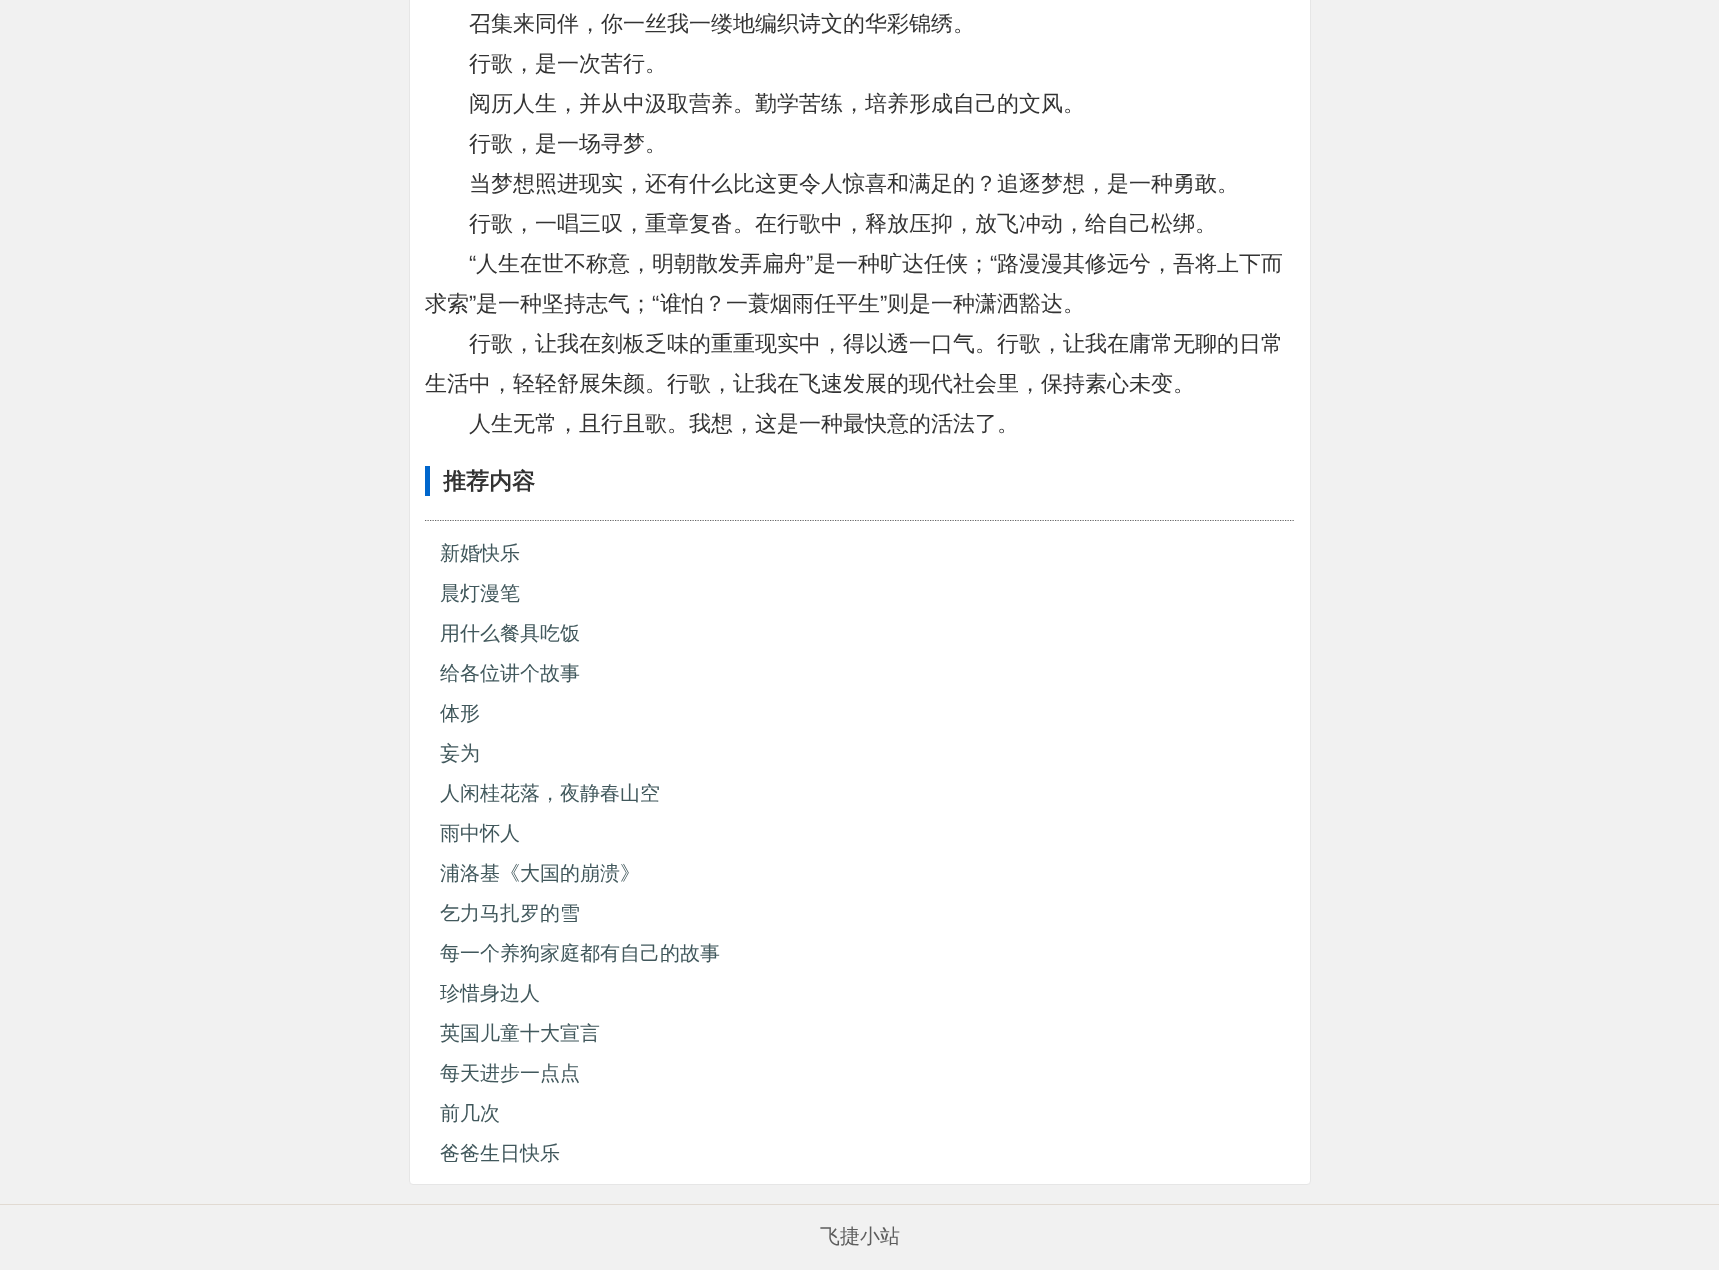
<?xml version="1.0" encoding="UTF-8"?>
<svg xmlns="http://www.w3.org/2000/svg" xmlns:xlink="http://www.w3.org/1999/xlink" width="1719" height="1270">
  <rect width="100%" height="100%" fill="#f1f1f1" />
  <rect x="409.5" y="-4.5" width="901" height="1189" rx="3.5" fill="#ffffff" stroke="#e6e6e6" />
  <rect x="425" y="466" width="5" height="30" fill="#0066cc" />
  <path d="M 425 520.5 h 870" fill="none" stroke="#666666" stroke-width="1.2" stroke-dasharray="1.25 1.25" />
  <rect y="1204" width="1719" height="1" fill="#e1dad2" />
  <text x="469" y="31" style="font-family: WenQuanYi Zen Hei; font-size: 22px; font-weight: 500; fill: #333333">召集来同伴，你一丝我一缕地编织诗文的华彩锦绣。</text>
  <text x="469" y="71" style="font-family: WenQuanYi Zen Hei; font-size: 22px; font-weight: 500; fill: #333333">行歌，是一次苦行。</text>
  <text x="469" y="111" style="font-family: WenQuanYi Zen Hei; font-size: 22px; font-weight: 500; fill: #333333">阅历人生，并从中汲取营养。勤学苦练，培养形成自己的文风。</text>
  <text x="469" y="151" style="font-family: WenQuanYi Zen Hei; font-size: 22px; font-weight: 500; fill: #333333">行歌，是一场寻梦。</text>
  <text x="469" y="191" style="font-family: WenQuanYi Zen Hei; font-size: 22px; font-weight: 500; fill: #333333">当梦想照进现实，还有什么比这更令人惊喜和满足的？追逐梦想，是一种勇敢。</text>
  <text x="469" y="231" style="font-family: WenQuanYi Zen Hei; font-size: 22px; font-weight: 500; fill: #333333">行歌，一唱三叹，重章复沓。在行歌中，释放压抑，放飞冲动，给自己松绑。</text>
  <text x="469" y="271" style="font-family: Liberation Sans; font-size: 22px; fill: #333333">“</text>
  <text x="476" y="271" style="font-family: WenQuanYi Zen Hei; font-size: 22px; font-weight: 500; fill: #333333">人生在世不称意，明朝散发弄扁舟</text>
  <text x="806" y="271" style="font-family: Liberation Sans; font-size: 22px; fill: #333333">”</text>
  <text x="814" y="271" style="font-family: WenQuanYi Zen Hei; font-size: 22px; font-weight: 500; fill: #333333">是一种旷达任侠；</text>
  <text x="990" y="271" style="font-family: Liberation Sans; font-size: 22px; fill: #333333">“</text>
  <text x="997" y="271" style="font-family: WenQuanYi Zen Hei; font-size: 22px; font-weight: 500; fill: #333333">路漫漫其修远兮，吾将上下而</text>
  <text x="425" y="311" style="font-family: WenQuanYi Zen Hei; font-size: 22px; font-weight: 500; fill: #333333">求索</text>
  <text x="469" y="311" style="font-family: Liberation Sans; font-size: 22px; fill: #333333">”</text>
  <text x="476" y="311" style="font-family: WenQuanYi Zen Hei; font-size: 22px; font-weight: 500; fill: #333333">是一种坚持志气；</text>
  <text x="652" y="311" style="font-family: Liberation Sans; font-size: 22px; fill: #333333">“</text>
  <text x="660" y="311" style="font-family: WenQuanYi Zen Hei; font-size: 22px; font-weight: 500; fill: #333333">谁怕？一蓑烟雨任平生</text>
  <text x="880" y="311" style="font-family: Liberation Sans; font-size: 22px; fill: #333333">”</text>
  <text x="887" y="311" style="font-family: WenQuanYi Zen Hei; font-size: 22px; font-weight: 500; fill: #333333">则是一种潇洒豁达。</text>
  <text x="469" y="351" style="font-family: WenQuanYi Zen Hei; font-size: 22px; font-weight: 500; fill: #333333">行歌，让我在刻板乏味的重重现实中，得以透一口气。行歌，让我在庸常无聊的日常</text>
  <text x="425" y="391" style="font-family: WenQuanYi Zen Hei; font-size: 22px; font-weight: 500; fill: #333333">生活中，轻轻舒展朱颜。行歌，让我在飞速发展的现代社会里，保持素心未变。</text>
  <text x="469" y="431" style="font-family: WenQuanYi Zen Hei; font-size: 22px; font-weight: 500; fill: #333333">人生无常，且行且歌。我想，这是一种最快意的活法了。</text>
  <text x="443" y="489" style="font-family: WenQuanYi Zen Hei; font-size: 23px; font-weight: bold; fill: #333333">推荐内容</text>
  <text x="440" y="560" style="font-family: WenQuanYi Zen Hei; font-size: 20px; font-weight: 500; fill: #41585c">新婚快乐</text>
  <text x="440" y="600" style="font-family: WenQuanYi Zen Hei; font-size: 20px; font-weight: 500; fill: #41585c">晨灯漫笔</text>
  <text x="440" y="640" style="font-family: WenQuanYi Zen Hei; font-size: 20px; font-weight: 500; fill: #41585c">用什么餐具吃饭</text>
  <text x="440" y="680" style="font-family: WenQuanYi Zen Hei; font-size: 20px; font-weight: 500; fill: #41585c">给各位讲个故事</text>
  <text x="440" y="720" style="font-family: WenQuanYi Zen Hei; font-size: 20px; font-weight: 500; fill: #41585c">体形</text>
  <text x="440" y="760" style="font-family: WenQuanYi Zen Hei; font-size: 20px; font-weight: 500; fill: #41585c">妄为</text>
  <text x="440" y="800" style="font-family: WenQuanYi Zen Hei; font-size: 20px; font-weight: 500; fill: #41585c">人闲桂花落，夜静春山空</text>
  <text x="440" y="840" style="font-family: WenQuanYi Zen Hei; font-size: 20px; font-weight: 500; fill: #41585c">雨中怀人</text>
  <text x="440" y="880" style="font-family: WenQuanYi Zen Hei; font-size: 20px; font-weight: 500; fill: #41585c">浦洛基《大国的崩溃》</text>
  <text x="440" y="920" style="font-family: WenQuanYi Zen Hei; font-size: 20px; font-weight: 500; fill: #41585c">乞力马扎罗的雪</text>
  <text x="440" y="960" style="font-family: WenQuanYi Zen Hei; font-size: 20px; font-weight: 500; fill: #41585c">每一个养狗家庭都有自己的故事</text>
  <text x="440" y="1000" style="font-family: WenQuanYi Zen Hei; font-size: 20px; font-weight: 500; fill: #41585c">珍惜身边人</text>
  <text x="440" y="1040" style="font-family: WenQuanYi Zen Hei; font-size: 20px; font-weight: 500; fill: #41585c">英国儿童十大宣言</text>
  <text x="440" y="1080" style="font-family: WenQuanYi Zen Hei; font-size: 20px; font-weight: 500; fill: #41585c">每天进步一点点</text>
  <text x="440" y="1120" style="font-family: WenQuanYi Zen Hei; font-size: 20px; font-weight: 500; fill: #41585c">前几次</text>
  <text x="440" y="1160" style="font-family: WenQuanYi Zen Hei; font-size: 20px; font-weight: 500; fill: #41585c">爸爸生日快乐</text>
  <text x="820" y="1243" style="font-family: WenQuanYi Zen Hei; font-size: 20px; font-weight: 500; fill: #5d5d5d">飞捷小站</text>
</svg>
